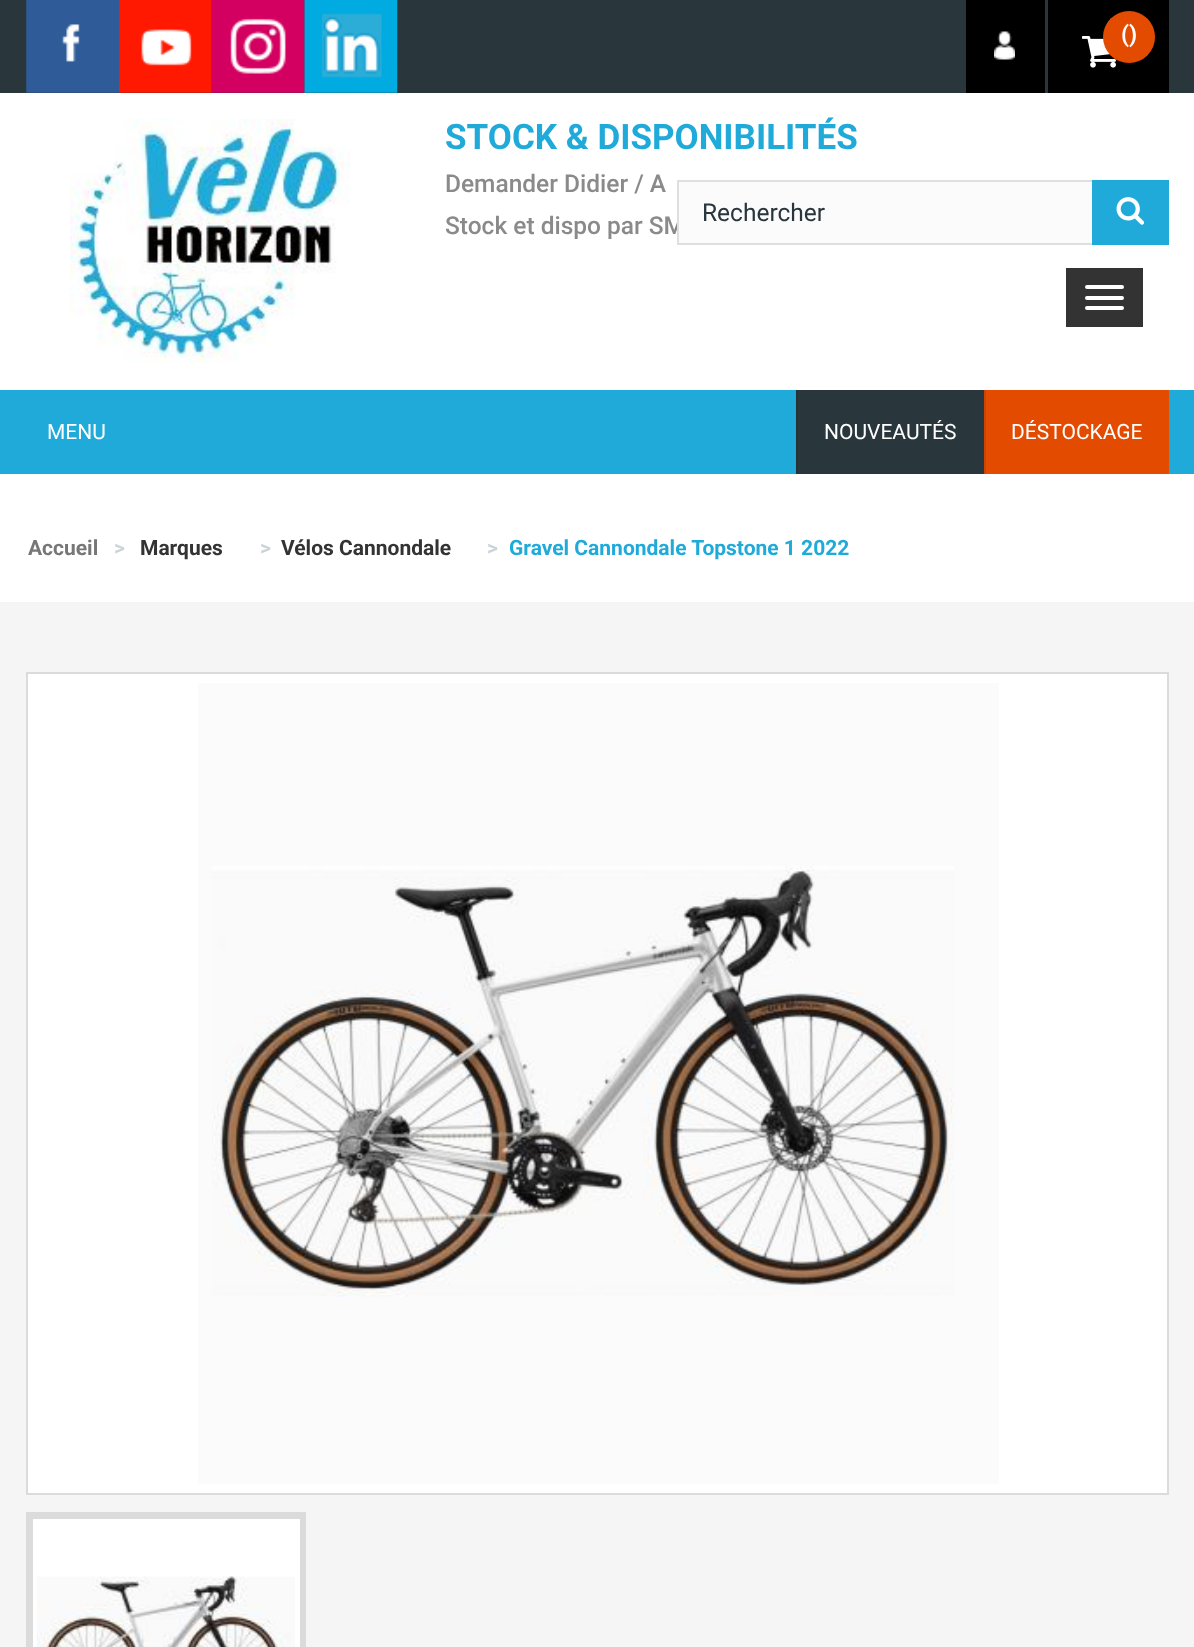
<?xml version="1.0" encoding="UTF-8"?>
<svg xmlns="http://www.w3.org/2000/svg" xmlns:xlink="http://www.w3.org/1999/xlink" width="1194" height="1647">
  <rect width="100%" height="100%" fill="#ffffff" />
  <rect width="1194" height="93" fill="#29373d" />
  <image x="26" y="0" width="93" height="93" xlink:href="image1.png" />
  <image x="119" y="0" width="93" height="93" xlink:href="image2.png" />
  <image x="211" y="0" width="94" height="93" xlink:href="image3.png" />
  <image x="304" y="0" width="94" height="93" xlink:href="image4.png" />
  <rect x="966" width="79" height="93" fill="#000000" />
  <image x="994" y="31" width="21" height="29" xlink:href="image5.png" />
  <rect x="1048" width="121" height="93" fill="#000000" />
  <image x="1082" y="36" width="34" height="32" xlink:href="image6.png" />
  <circle cx="1129" cy="37" r="26" fill="#e34b00" />
  <image x="70" y="119" width="280" height="243" xlink:href="image7.png" />
  <rect x="1066" y="268" width="77" height="59" fill="#333333" />
  <rect x="1085" y="285" width="39" height="4" rx="2" fill="#ffffff" />
  <rect x="1085" y="296" width="39" height="4" rx="2" fill="#ffffff" />
  <rect x="1085" y="306" width="39" height="4" rx="2" fill="#ffffff" />
  <rect y="390" width="1194" height="84" fill="#1faad9" />
  <rect x="798" y="390" width="186" height="84" fill="#29373d" />
  <rect x="796" y="390" width="2" height="84" fill="#253237" />
  <rect x="986" y="390" width="183" height="84" fill="#e34b00" />
  <rect x="984" y="390" width="2" height="84" fill="#cc4400" />
  <rect y="602" width="1194" height="1045" fill="#f5f5f5" />
  <rect x="27" y="673" width="1141" height="821" fill="#ffffff" stroke="#dbdbdb" stroke-width="2" />
  <rect x="198" y="683" width="801" height="801" fill="#fbfbfb" />
  <image x="212" y="866" width="742" height="431" xlink:href="image9.png" />
  <rect x="27" y="1513" width="278" height="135" fill="none" stroke="#dbdbdb" stroke-width="2" />
  <rect x="30.5" y="1516.5" width="272" height="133" fill="#ffffff" stroke="#dbdbdb" stroke-width="5" />
  <image x="36" y="1576" width="259" height="71" xlink:href="image10.png" />
  <text x="1121" y="42" style="font-family: Roboto; font-size: 23px; font-weight: bold; fill: #ffffff">()</text>
  <text x="445" y="149" style="font-family: Roboto; font-size: 35px; font-weight: bold; fill: #1faad9">STOCK &amp; DISPONIBILITÉS</text>
  <text x="445" y="192" style="font-family: Roboto; font-size: 24.5px; font-weight: 500; fill: #8a8a8a">Demander Didier / A</text>
  <text x="445" y="234" style="font-family: Roboto; font-size: 24.5px; font-weight: 500; fill: #8a8a8a">Stock et dispo par SM</text>
  <rect x="679" y="182" width="413" height="61" fill="#fbfbfb" />
  <rect x="678" y="181" width="488" height="63" fill="none" stroke="#dfdfdf" stroke-width="2" />
  <text x="702" y="221" style="font-family: Roboto; font-size: 24.5px; fill: #29363d">Rechercher</text>
  <rect x="1092" y="180" width="77" height="65" fill="#1faad9" />
  <image x="1116" y="197" width="29" height="28" xlink:href="image8.png" />
  <text x="47" y="439" style="font-family: Roboto; font-size: 21px; fill: #ffffff">MENU</text>
  <text x="824" y="439" style="font-family: Roboto; font-size: 21px; fill: #ffffff">NOUVEAUTÉS</text>
  <text x="1011" y="439" style="font-family: Roboto; font-size: 21px; fill: #ffffff">DÉSTOCKAGE</text>
  <text x="28" y="555" style="font-family: Roboto; font-size: 21px; font-weight: bold; fill: #777777">Accueil</text>
  <text x="114" y="555" style="font-family: Roboto; font-size: 21px; font-weight: bold; fill: #cad4d7">&gt;</text>
  <text x="140" y="555" style="font-family: Roboto; font-size: 21px; font-weight: bold; fill: #333333">Marques</text>
  <text x="260" y="555" style="font-family: Roboto; font-size: 21px; font-weight: bold; fill: #cad4d7">&gt;</text>
  <text x="281" y="555" style="font-family: Roboto; font-size: 21px; font-weight: bold; fill: #333333">Vélos Cannondale</text>
  <text x="487" y="555" style="font-family: Roboto; font-size: 21px; font-weight: bold; fill: #cad4d7">&gt;</text>
  <text x="509" y="555" style="font-family: Roboto; font-size: 21px; font-weight: bold; fill: #1faad9">Gravel Cannondale Topstone 1 2022</text>
</svg>
